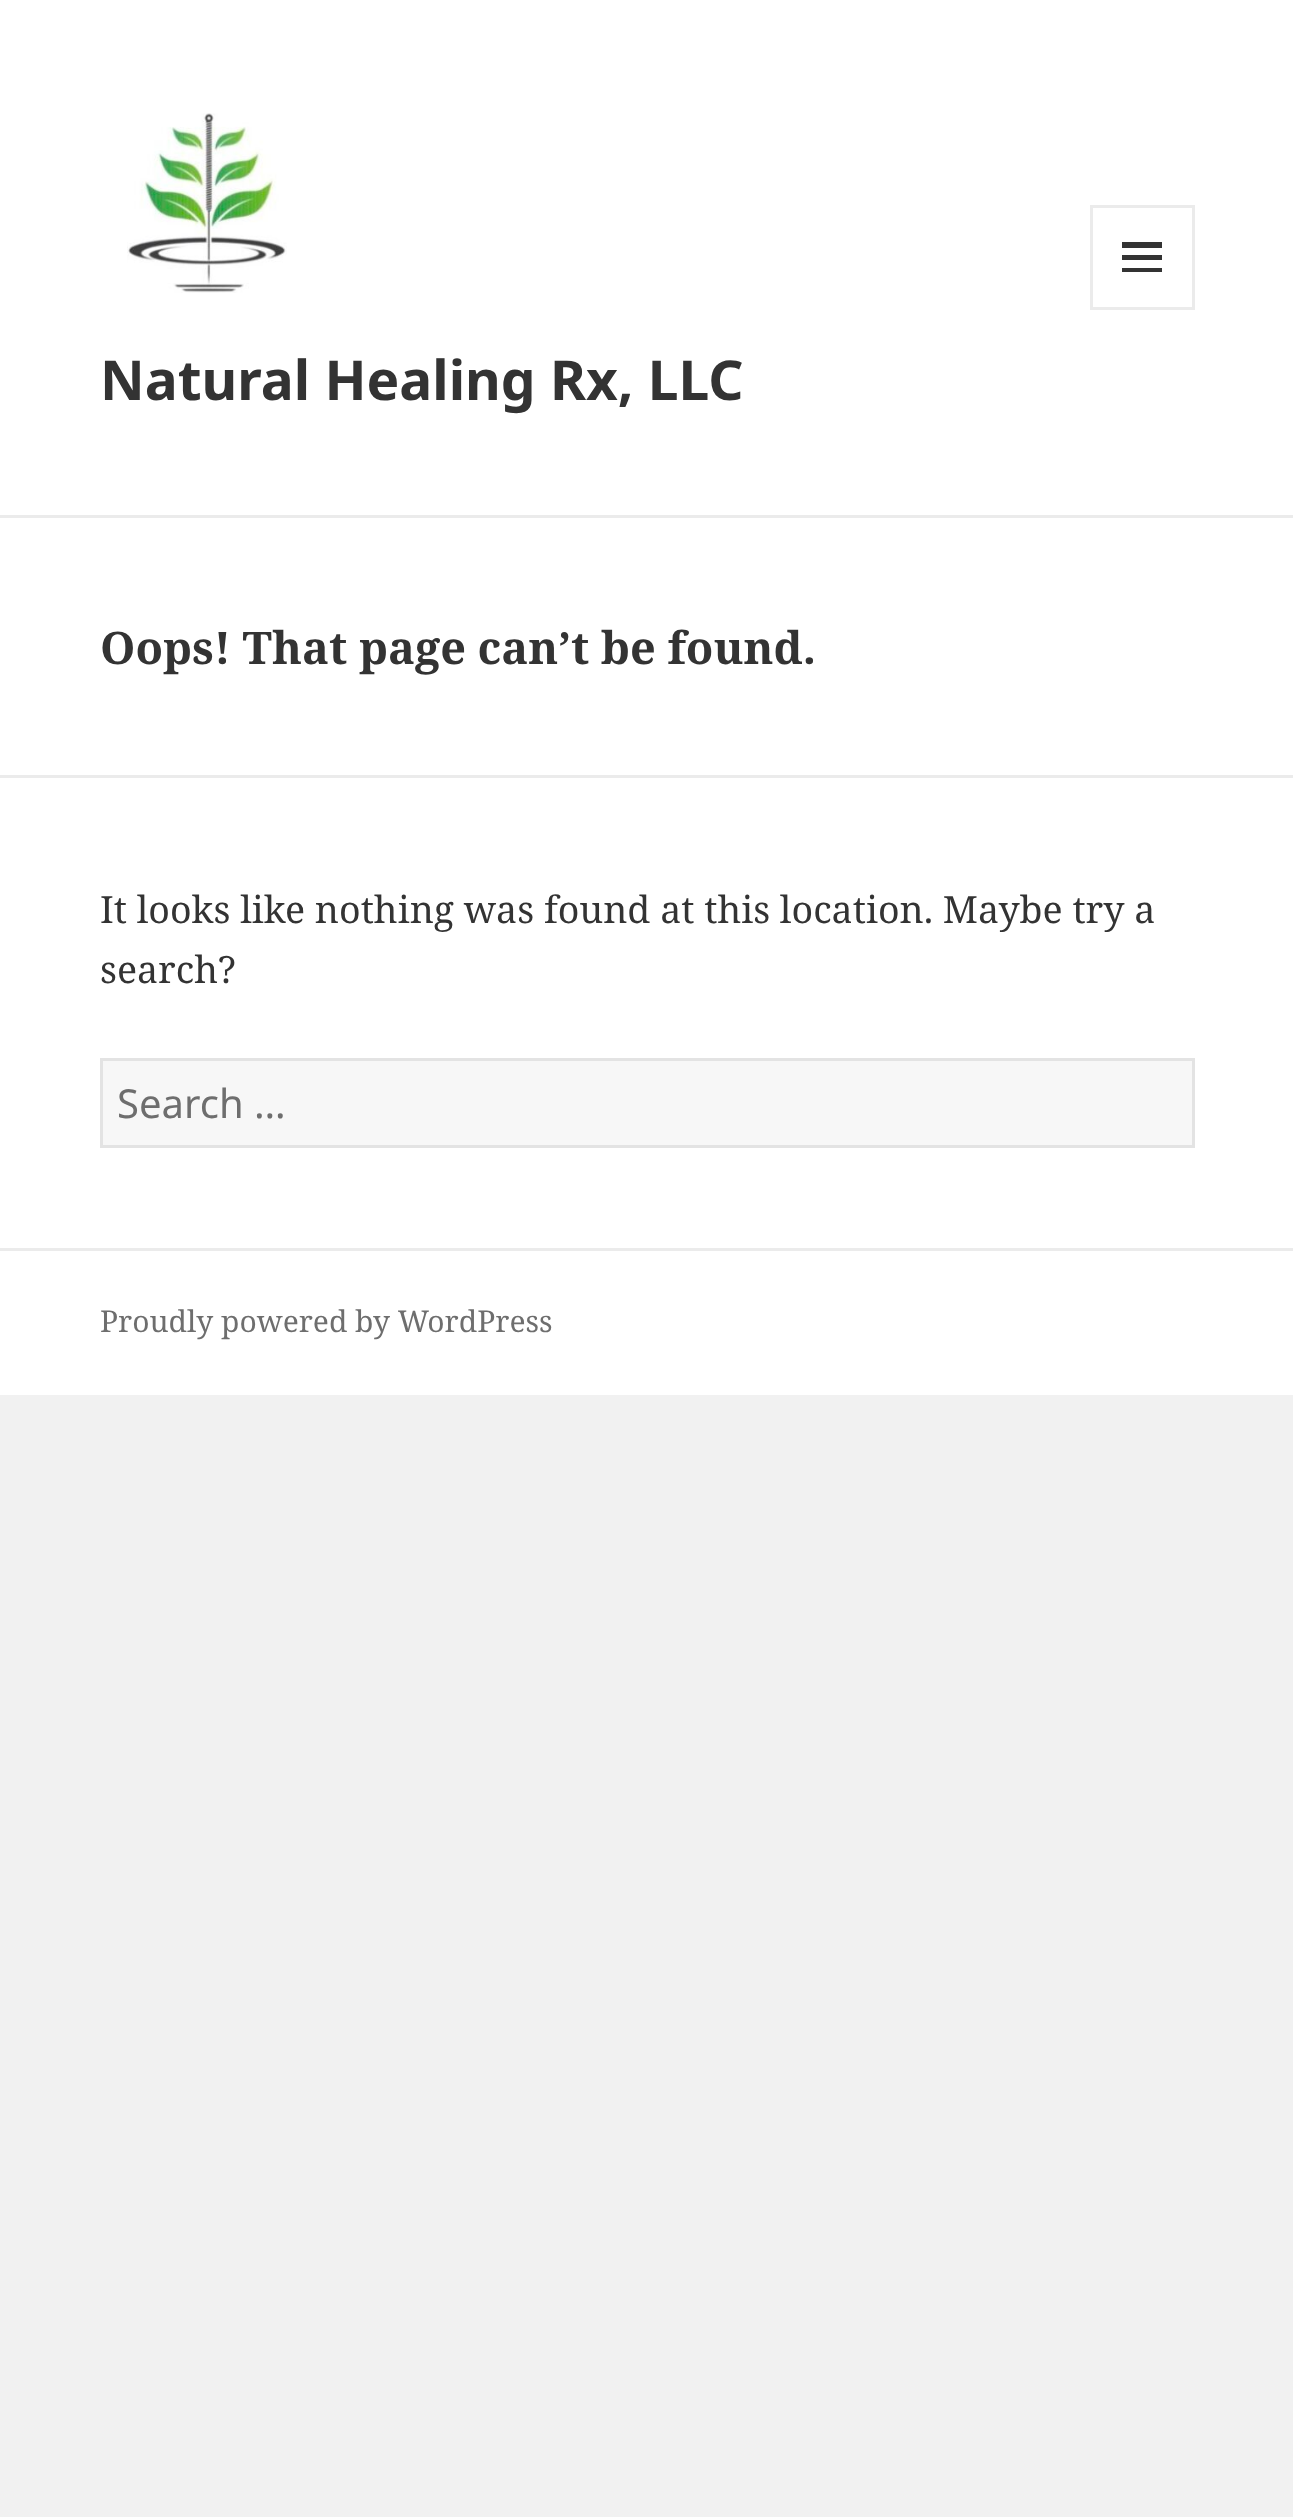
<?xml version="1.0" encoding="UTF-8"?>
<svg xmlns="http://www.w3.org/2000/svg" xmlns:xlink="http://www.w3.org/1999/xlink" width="1293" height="2517">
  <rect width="100%" height="100%" fill="#f1f1f1" />
  <rect width="1293" height="515" fill="#ffffff" />
  <rect y="515" width="1293" height="3" fill="#ebebeb" />
  <image x="127" y="113" width="160" height="180" xlink:href="image1.png" />
  <rect x="1091.5" y="206.5" width="102" height="102" fill="none" stroke="#ebebeb" stroke-width="3" />
  <path d="M 1122 272 v -4 h 40 v 4 z m 0 -30 h 40 v 6 h -40 z m 0 18 v -5 h 40 v 5 z" fill="#333333" />
  <rect y="518" width="1293" height="257" fill="#ffffff" />
  <rect y="775" width="1293" height="3" fill="#ebebeb" />
  <rect y="778" width="1293" height="470" fill="#ffffff" />
  <rect x="101.5" y="1059.5" width="1092" height="87" fill="#f7f7f7" stroke="#e3e3e3" stroke-width="3" />
  <rect y="1251" width="1293" height="144" fill="#ffffff" />
  <rect y="1248" width="1293" height="3" fill="#ebebeb" />
  <text x="100" y="400" style="font-family: Noto Sans; font-size: 55px; font-weight: bold; fill: #333333">Natural Healing Rx, LLC</text>
  <text x="100" y="664" style="font-family: Noto Serif; font-size: 45px; font-weight: bold; fill: #333333">Oops! That page can’t be found.</text>
  <text x="100" y="923" style="font-family: Noto Serif; font-size: 37.5px; fill: #333333">It looks like nothing was found at this location. Maybe try a</text>
  <text x="100" y="983" style="font-family: Noto Serif; font-size: 37.5px; fill: #333333">search?</text>
  <text x="117" y="1118" style="font-family: Noto Sans; font-size: 40px; fill: #6e6e6e">Search …</text>
  <text x="100" y="1332" style="font-family: Noto Serif; font-size: 30px; fill: #6e6e6e">Proudly powered by WordPress</text>
</svg>
